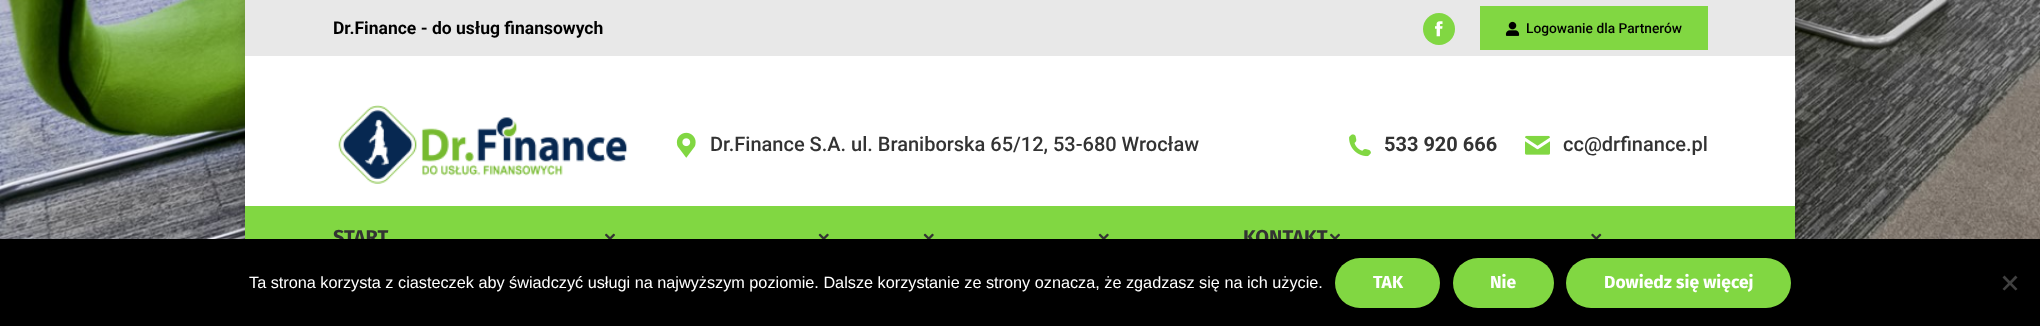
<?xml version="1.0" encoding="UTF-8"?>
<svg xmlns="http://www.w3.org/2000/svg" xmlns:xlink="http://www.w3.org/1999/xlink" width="2040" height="326">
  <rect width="100%" height="100%" fill="#ffffff" />
  <image x="0" y="0" width="2040" height="239" xlink:href="image1.png" />
  <rect x="245" width="1550" height="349" fill="#000000" fill-opacity="0.15" filter="blur(7.5px)" />
  <rect x="245" y="56" width="1550" height="150" fill="#ffffff" />
  <rect x="245" width="1550" height="56" fill="#e8e8e8" />
  <circle cx="1439" cy="29" r="16" fill="#81d742" />
  <image x="1435" y="21" width="8" height="16" xlink:href="image2.png" />
  <rect x="1480" y="6" width="228" height="44" fill="#81d742" />
  <image x="1505" y="21" width="15" height="15" xlink:href="image3.png" />
  <image x="338" y="105" width="290" height="79" xlink:href="image4.png" />
  <image x="676" y="132" width="20" height="26" xlink:href="image5.png" />
  <image x="1349" y="134" width="22" height="23" xlink:href="image6.png" />
  <image x="1525" y="135" width="25" height="20" xlink:href="image7.png" />
  <rect x="245" y="206" width="1550" height="33" fill="#81d742" />
  <image x="605" y="233" width="10" height="6" xlink:href="image8.png" />
  <image x="818" y="233" width="11" height="6" xlink:href="image9.png" />
  <image x="923" y="233" width="11" height="6" xlink:href="image9.png" />
  <image x="1098" y="233" width="11" height="6" xlink:href="image9.png" />
  <image x="1330" y="233" width="10" height="6" xlink:href="image8.png" />
  <image x="1591" y="233" width="11" height="6" xlink:href="image10.png" />
  <text x="333" y="34" style="font-family: Roboto; font-size: 17.5px; font-weight: bold; fill: #000000">Dr.Finance - do usług finansowych</text>
  <text x="1526" y="33" style="font-family: Roboto; font-size: 13.75px; font-weight: 500; fill: #000000">Logowanie dla Partnerów</text>
  <text x="710" y="151" style="font-family: Roboto; font-size: 20px; font-weight: 500; fill: #333333">Dr.Finance S.A. ul. Braniborska 65/12, 53-680 Wrocław</text>
  <text x="1384" y="151" style="font-family: Roboto; font-size: 20px; font-weight: bold; fill: #333333">533 920 666</text>
  <text x="1563" y="151" style="font-family: Roboto; font-size: 20px; font-weight: 500; fill: #333333">cc@drfinance.pl</text>
  <text x="333" y="244" style="font-family: Fira Sans; font-size: 20px; font-weight: bold; fill: #333333">START</text>
  <text x="1243" y="244" style="font-family: Fira Sans; font-size: 20px; font-weight: bold; fill: #333333">KONTAKT</text>
  <rect y="239" width="2040" height="87" fill="#000000" />
  <text x="249" y="288" style="font-family: Liberation Sans; font-size: 16.25px; fill: #ffffff">Ta strona korzysta z ciasteczek aby świadczyć usługi na najwyższym poziomie. Dalsze korzystanie ze strony oznacza, że zgadzasz się na ich użycie.</text>
  <rect x="1335" y="258" width="105" height="50" rx="25" fill="#81d742" />
  <text x="1373" y="288" style="font-family: Fira Sans; font-size: 17.5px; font-weight: bold; fill: #ffffff">TAK</text>
  <rect x="1453" y="258" width="101" height="50" rx="25" fill="#81d742" />
  <text x="1490" y="288" style="font-family: Fira Sans; font-size: 17.5px; font-weight: bold; fill: #ffffff">Nie</text>
  <rect x="1566" y="258" width="225" height="50" rx="25" fill="#81d742" />
  <text x="1604" y="288" style="font-family: Fira Sans; font-size: 17.5px; font-weight: bold; fill: #ffffff">Dowiedz się więcej</text>
  <path d="M 2015.5 275.5 l 2 2 l -13 13 l -2 -1.5 z" fill="#404040" />
  <path d="M 2002.5 277.5 l 2 -2 l 13 13.5 l -2 1.5 z" fill="#404040" />
</svg>
